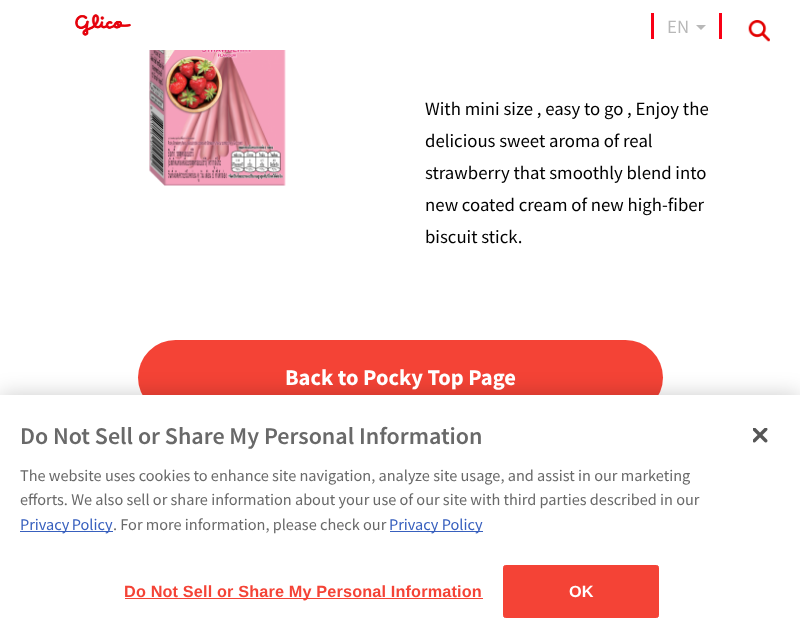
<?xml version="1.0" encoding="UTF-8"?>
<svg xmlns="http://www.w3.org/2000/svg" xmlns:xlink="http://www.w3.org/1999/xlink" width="800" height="637">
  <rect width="100%" height="100%" fill="#ffffff" />
  <image x="75" y="14" width="56" height="22" xlink:href="image1.png" />
  <rect x="719" y="13" width="3" height="26" fill="#f90015" />
  <rect x="651" y="13" width="3" height="26" fill="#f90015" />
  <path d="M 696 25 h 10 l -5 5 z" fill="#b8b8b8" />
  <image x="748" y="20" width="22" height="22" xlink:href="image2.png" />
  <image x="149" y="50" width="137" height="136" xlink:href="image3.png" />
  <rect x="138" y="340" width="525" height="75" rx="37.5" fill="#f44336" />
  <rect y="395" width="800" height="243" fill="#000000" fill-opacity="0.2" filter="blur(11px)" />
  <rect y="395" width="800" height="242" fill="#ffffff" />
  <rect x="20" y="531" width="93" height="1" fill="#3860be" />
  <rect x="390" y="531" width="93" height="1" fill="#3860be" />
  <rect x="125" y="598" width="358" height="1" fill="#f44336" />
  <rect x="503.5" y="565.5" width="155" height="52" rx="2" fill="#f44336" stroke="#f44336" />
  <image x="753" y="428" width="15" height="15" xlink:href="image4.png" />
  <text x="667" y="33" style="font-family: Source Sans Pro; font-size: 18.75px; fill: #b8b8b8">EN</text>
  <text x="425" y="115" style="font-family: Source Sans Pro; font-size: 18.75px; fill: #000000">With mini size , easy to go , Enjoy the</text>
  <text x="425" y="147" style="font-family: Source Sans Pro; font-size: 18.75px; fill: #000000">delicious sweet aroma of real</text>
  <text x="425" y="179" style="font-family: Source Sans Pro; font-size: 18.75px; fill: #000000">strawberry that smoothly blend into</text>
  <text x="425" y="211" style="font-family: Source Sans Pro; font-size: 18.75px; fill: #000000">new coated cream of new high-fiber</text>
  <text x="425" y="243" style="font-family: Source Sans Pro; font-size: 18.75px; fill: #000000">biscuit stick.</text>
  <text x="285" y="385" style="font-family: Source Sans Pro; font-size: 22.5px; font-weight: bold; fill: #ffffff">Back to Pocky Top Page</text>
  <text x="20" y="444" style="font-family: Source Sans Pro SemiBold; font-size: 24px; font-weight: 600; fill: #696969">Do Not Sell or Share My Personal Information</text>
  <text x="20" y="481" style="font-family: Source Sans Pro; font-size: 16.25px; fill: #696969">The website uses cookies to enhance site navigation, analyze site usage, and assist in our marketing</text>
  <text x="20" y="505" style="font-family: Source Sans Pro; font-size: 16.25px; fill: #696969">efforts. We also sell or share information about your use of our site with third parties described in our</text>
  <text x="20" y="530" word-spacing="-1" style="font-family: Source Sans Pro; font-size: 16.25px; fill: #3860be">Privacy Policy</text>
  <text x="113" y="530" style="font-family: Source Sans Pro; font-size: 16.25px; fill: #696969">. For more information, please check our</text>
  <text x="389" y="530" style="font-family: Source Sans Pro; font-size: 16.25px; fill: #3860be">Privacy Policy</text>
  <text x="124" y="597" style="font-family: Liberation Sans; font-size: 16.25px; font-weight: bold; letter-spacing: 0.15px; fill: #f44336">Do Not Sell or Share My Personal Information</text>
  <text x="569" y="597" style="font-family: Liberation Sans; font-size: 16.25px; font-weight: bold; letter-spacing: 0.15px; fill: #ffffff">OK</text>
</svg>
